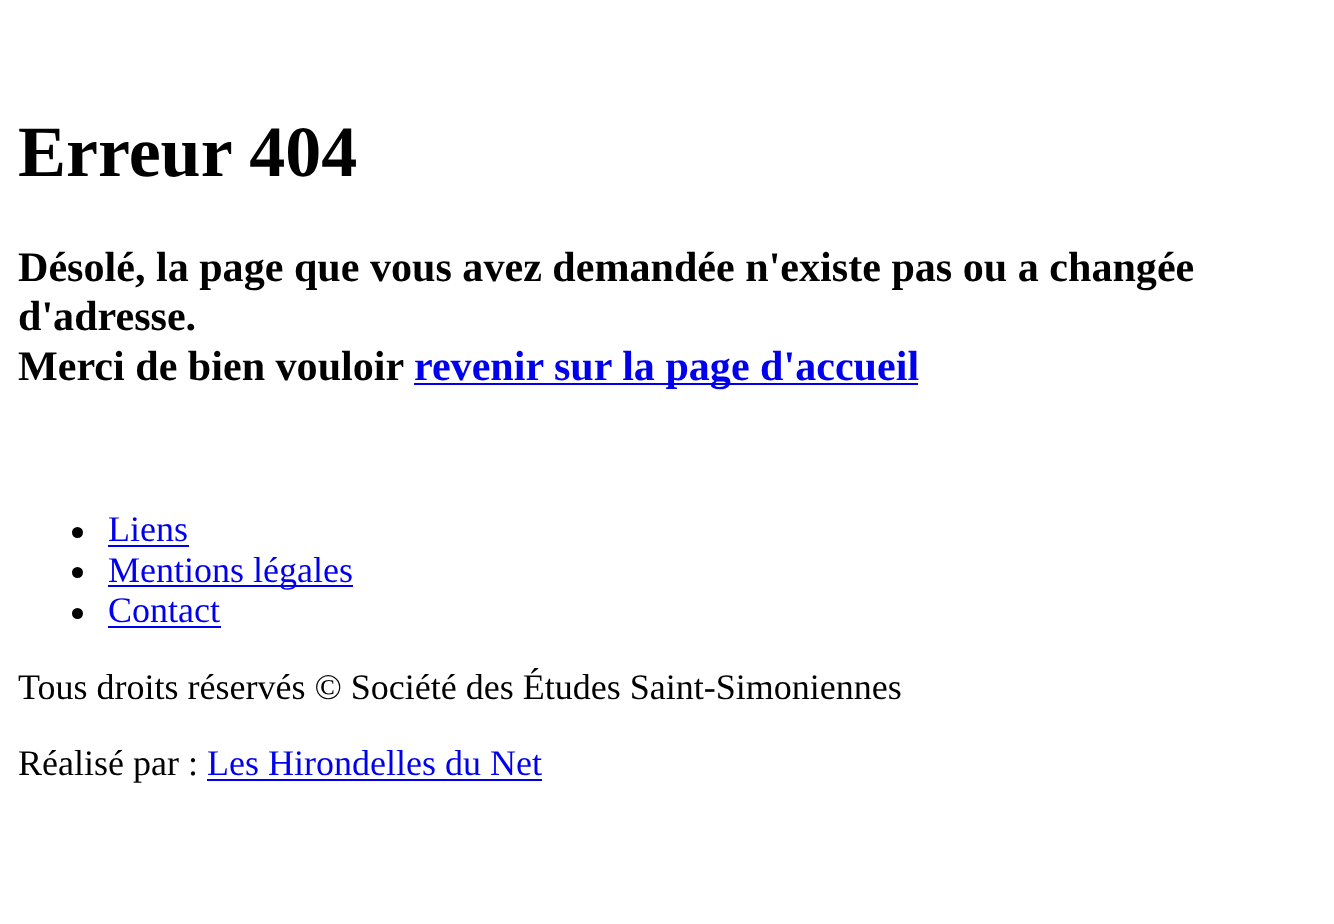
<?xml version="1.0" encoding="UTF-8"?>
<svg xmlns="http://www.w3.org/2000/svg" xmlns:xlink="http://www.w3.org/1999/xlink" width="1334" height="924">
  <rect width="100%" height="100%" fill="#ffffff" />
  <rect x="414" y="383" width="504" height="2" fill="#0000ee" />
  <circle cx="77.5" cy="532.5" r="5.5" fill="#000000" />
  <rect x="108" y="545" width="81" height="2" fill="#0000ee" />
  <circle cx="77.5" cy="572.5" r="5.5" fill="#000000" />
  <rect x="108" y="585" width="245" height="2" fill="#0000ee" />
  <circle cx="77.5" cy="613.5" r="5.5" fill="#000000" />
  <rect x="108" y="626" width="113" height="2" fill="#0000ee" />
  <rect x="207" y="779" width="335" height="2" fill="#0000ee" />
  <text x="18" y="176" style="font-family: Liberation Serif; font-size: 72px; font-weight: bold; fill: #000000">Erreur 404</text>
  <text x="18" y="281" style="font-family: Liberation Serif; font-size: 42.1px; font-weight: bold; fill: #000000">Désolé, la page que vous avez demandée n'existe pas ou a changée</text>
  <text x="18" y="330" style="font-family: Liberation Serif; font-size: 42.1px; font-weight: bold; fill: #000000">d'adresse.</text>
  <text x="18" y="380" style="font-family: Liberation Serif; font-size: 42.1px; font-weight: bold; fill: #000000">Merci de bien vouloir</text>
  <text x="414" y="380" style="font-family: Liberation Serif; font-size: 42.1px; font-weight: bold; fill: #0000ee">revenir sur la page d'accueil</text>
  <text x="108" y="541" style="font-family: Liberation Serif; font-size: 36px; fill: #0000ee">Liens</text>
  <text x="108" y="582" style="font-family: Liberation Serif; font-size: 36px; fill: #0000ee">Mentions légales</text>
  <text x="108" y="622" style="font-family: Liberation Serif; font-size: 36px; fill: #0000ee">Contact</text>
  <text x="18" y="699" style="font-family: Liberation Serif; font-size: 36px; fill: #000000">Tous droits réservés © Société des Études Saint-Simoniennes</text>
  <text x="18" y="775" style="font-family: Liberation Serif; font-size: 36px; fill: #000000">Réalisé par :</text>
  <text x="207" y="775" style="font-family: Liberation Serif; font-size: 36px; fill: #0000ee">Les Hirondelles du Net</text>
</svg>
